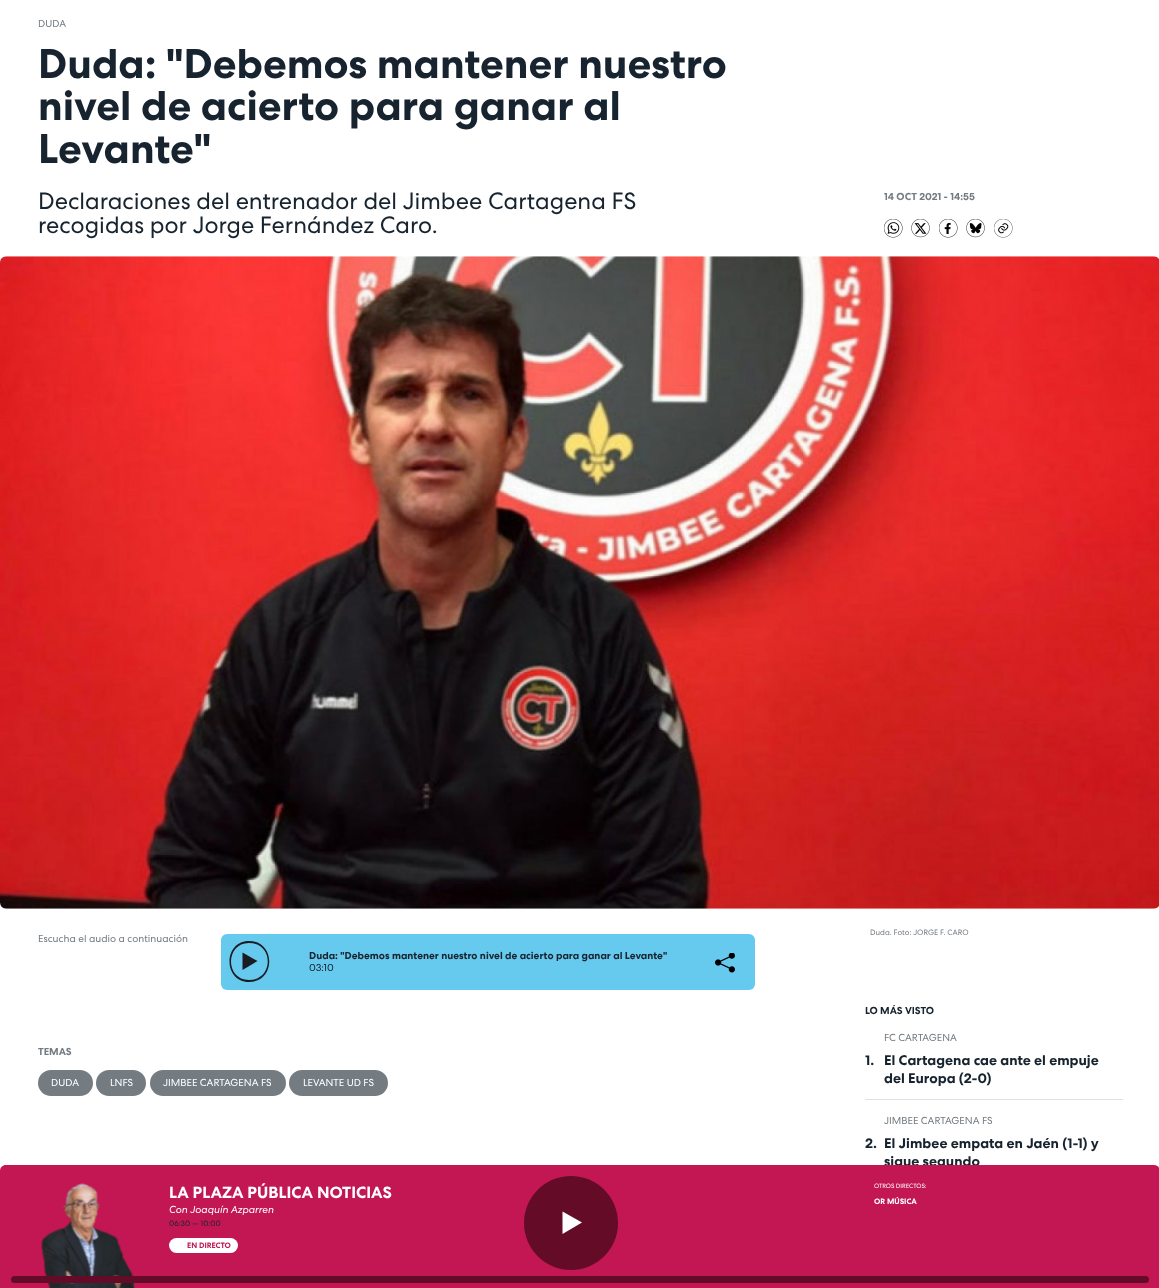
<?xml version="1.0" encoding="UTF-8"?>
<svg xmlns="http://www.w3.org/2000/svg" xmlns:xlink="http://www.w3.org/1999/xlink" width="1159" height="1288">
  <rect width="100%" height="100%" fill="#ffffff" />
  <image x="884" y="219" width="19" height="19" xlink:href="image1.png" />
  <image x="911" y="219" width="19" height="19" xlink:href="image2.png" />
  <image x="939" y="219" width="19" height="19" xlink:href="image3.png" />
  <image x="966" y="219" width="19" height="19" xlink:href="image4.png" />
  <image x="994" y="219" width="19" height="19" xlink:href="image5.png" />
  <image x="0" y="256" width="1159" height="653" xlink:href="image6.png" />
  <rect x="221" y="934" width="534" height="56" rx="6" fill="#66c9ee" />
  <path d="M 249 982 c -26 0 -26 -41 0 -41 c 27 0 27 41 0 41 z m 0 -39 c -24 0 -24 37 0 37 c 25 0 25 -37 0 -37 z" fill="#191d23" />
  <path d="M 242.5 952.5 v 17.5 l 15 -9 z" fill="#191d23" />
  <image x="715" y="953" width="20" height="20" xlink:href="image7.png" />
  <rect x="38" y="1070" width="55" height="26" rx="13" fill="#747c82" />
  <rect x="96" y="1070" width="50" height="26" rx="13" fill="#747c82" />
  <rect x="150" y="1070" width="136" height="26" rx="13" fill="#747c82" />
  <rect x="289" y="1070" width="99" height="26" rx="13" fill="#747c82" />
  <rect x="865" y="1099" width="258" height="1" fill="#dee2e6" />
  <text x="38" y="27" style="font-family: 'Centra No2'; font-size: 10.15px; fill: #747c82">DUDA</text>
  <text x="38" y="78" style="font-family: 'Centra No2'; font-size: 41.4px; font-weight: bold; fill: #17242f">Duda: "Debemos mantener nuestro</text>
  <text x="38" y="120" style="font-family: 'Centra No2'; font-size: 41.4px; font-weight: bold; fill: #17242f">nivel de acierto para ganar al</text>
  <text x="38" y="163" style="font-family: 'Centra No2'; font-size: 41.4px; font-weight: bold; fill: #17242f">Levante"</text>
  <text x="38" y="209" style="font-family: 'Centra No2'; font-size: 23.45px; fill: #17242f">Declaraciones del entrenador del Jimbee Cartagena FS</text>
  <text x="38" y="233" style="font-family: 'Centra No2'; font-size: 23.45px; fill: #17242f">recogidas por Jorge Fernández Caro.</text>
  <text x="884" y="200" style="font-family: 'Centra No2'; font-size: 10.15px; font-weight: bold; fill: #747c82">14 OCT 2021 - 14:55</text>
  <text x="870" y="935" style="font-family: 'Centra No2'; font-size: 7.75px; fill: #747c82">Duda. Foto: JORGE F. CARO</text>
  <text x="38" y="942" style="font-family: 'Centra No2'; font-size: 10.15px; fill: #747c82">Escucha el audio a continuación</text>
  <text x="309" y="959" style="font-family: 'Centra No2'; font-size: 10.15px; font-weight: bold; fill: #17242f">Duda: "Debemos mantener nuestro nivel de acierto para ganar al Levante"</text>
  <text x="309" y="971" style="font-family: 'Centra No2'; font-size: 10.15px; fill: #17242f">03:10</text>
  <text x="38" y="1055" style="font-family: 'Centra No2'; font-size: 10.15px; font-weight: bold; fill: #747c82">TEMAS</text>
  <text x="51" y="1086" style="font-family: 'Centra No2'; font-size: 10.15px; fill: #ffffff">DUDA</text>
  <text x="110" y="1086" style="font-family: 'Centra No2'; font-size: 10.15px; fill: #ffffff">LNFS</text>
  <text x="163" y="1086" style="font-family: 'Centra No2'; font-size: 10.15px; fill: #ffffff">JIMBEE CARTAGENA FS</text>
  <text x="303" y="1086" style="font-family: 'Centra No2'; font-size: 10.15px; fill: #ffffff">LEVANTE UD FS</text>
  <text x="865" y="1014" style="font-family: 'Centra No2'; font-size: 10.15px; font-weight: bold; fill: #17242f">LO MÁS VISTO</text>
  <text x="884" y="1041" style="font-family: 'Centra No2'; font-size: 10.15px; fill: #747c82">FC CARTAGENA</text>
  <text x="865" y="1065" style="font-family: 'Centra No2'; font-size: 14px; font-weight: bold; fill: #17242f">1.</text>
  <text x="884" y="1065" style="font-family: 'Centra No2'; font-size: 14px; font-weight: bold; fill: #17242f">El Cartagena cae ante el empuje</text>
  <text x="884" y="1083" style="font-family: 'Centra No2'; font-size: 14px; font-weight: bold; fill: #17242f">del Europa (2-0)</text>
  <text x="884" y="1124" style="font-family: 'Centra No2'; font-size: 10.15px; fill: #747c82">JIMBEE CARTAGENA FS</text>
  <text x="865" y="1148" style="font-family: 'Centra No2'; font-size: 14px; font-weight: bold; fill: #17242f">2.</text>
  <text x="884" y="1148" style="font-family: 'Centra No2'; font-size: 14px; font-weight: bold; fill: #17242f">El Jimbee empata en Jaén (1-1) y</text>
  <text x="884" y="1166" style="font-family: 'Centra No2'; font-size: 14px; font-weight: bold; fill: #17242f">sigue segundo</text>
  <path d="M 6 1165 h 1148 c 3.5 0 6 2.5 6 6 v 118 h -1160 v -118 c 0 -3.5 2.5 -6 6 -6 z" fill="#c21753" />
  <image x="41" y="1183" width="94" height="105" xlink:href="image8.png" />
  <text x="169" y="1198" style="font-family: 'Centra No2'; font-size: 16.25px; font-weight: bold; fill: #ffffff">LA PLAZA PÚBLICA NOTICIAS</text>
  <text x="169" y="1213" style="font-family: 'Centra No2'; font-size: 10.15px; font-style: italic; fill: #ffffff">Con Joaquín Azparren</text>
  <text x="169" y="1226" style="font-family: 'Centra No2'; font-size: 7.75px; fill: #17242f">06:30 — 10:00</text>
  <rect x="169" y="1238" width="69" height="15" rx="7.5" fill="#ffffff" />
  <text x="187" y="1248" style="font-family: 'Centra No2'; font-size: 7.75px; font-weight: bold; fill: #bf1b55">EN DIRECTO</text>
  <circle cx="571" cy="1223" r="47" fill="#640b28" />
  <path d="M 562.5 1211.5 l 19.5 11 l -19.5 11.5 z" fill="#ffffff" />
  <text x="874" y="1188" style="font-family: 'Centra No2'; font-size: 6.25px; fill: #ffffff">OTROS DIRECTOS:</text>
  <text x="874" y="1204" style="font-family: 'Centra No2'; font-size: 7.75px; font-weight: bold; fill: #ffffff">OR MÚSICA</text>
  <rect x="11" y="1276" width="1138" height="7" rx="3.5" fill="#640b28" />
</svg>
